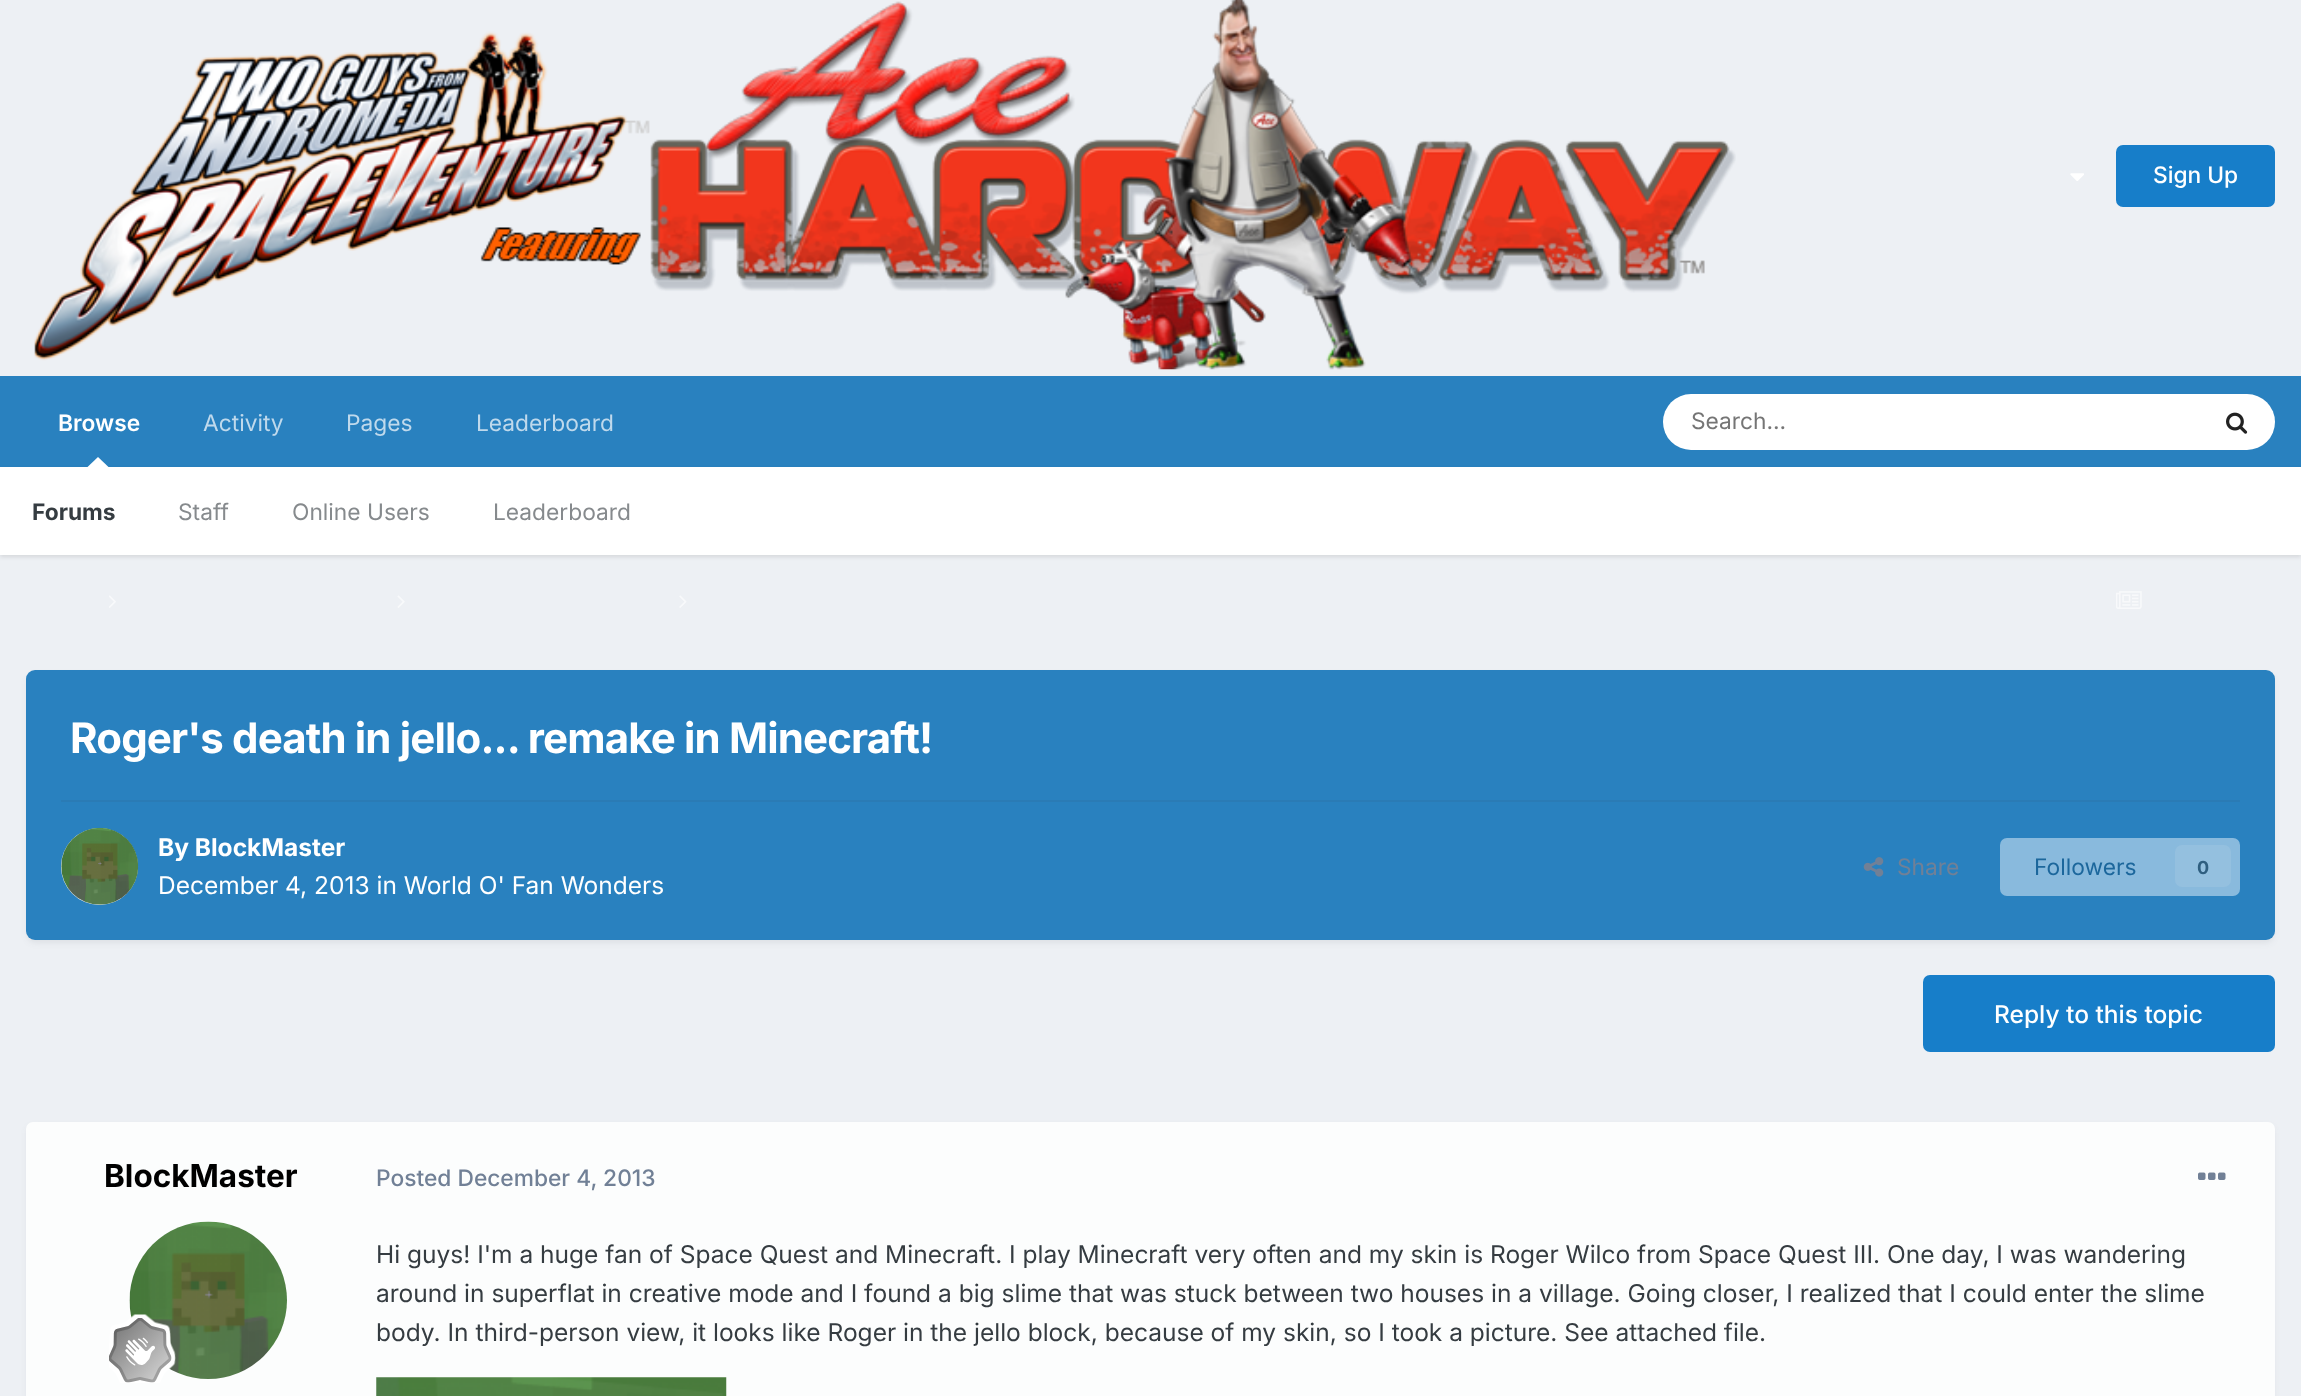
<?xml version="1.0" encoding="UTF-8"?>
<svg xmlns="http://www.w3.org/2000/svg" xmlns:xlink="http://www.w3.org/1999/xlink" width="2301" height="1396">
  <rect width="100%" height="100%" fill="#edf0f4" />
  <image x="34" y="0" width="1702" height="370" xlink:href="image1.png" />
  <image x="2070" y="173" width="14" height="8" xlink:href="image2.png" />
  <rect x="2116" y="145" width="159" height="62" rx="7" fill="#177ec9" />
  <rect y="376" width="2301" height="91" fill="#2981bf" />
  <rect y="469" width="2301" height="88" fill="#000000" fill-opacity="0.1" filter="blur(2px)" />
  <path d="M 108.5 467 h -21 l 10.5 -10 z" fill="#ffffff" />
  <rect x="1663" y="394" width="612" height="56" rx="28" fill="#ffffff" />
  <image x="2226" y="412" width="22" height="22" xlink:href="image3.png" />
  <rect y="467" width="2301" height="88" fill="#ffffff" />
  <image x="109" y="595" width="7" height="13" xlink:href="image4.png" />
  <image x="397" y="595" width="8" height="13" xlink:href="image5.png" />
  <image x="679" y="595" width="8" height="13" xlink:href="image6.png" />
  <image x="2116" y="591" width="26" height="18" xlink:href="image7.png" />
  <rect x="28" y="676" width="2245" height="266" rx="7" fill="#2d3748" fill-opacity="0.1" filter="blur(3.5px)" />
  <rect x="26" y="670" width="2249" height="270" rx="9" fill="#2981bf" />
  <rect x="61" y="800" width="2179" height="2" fill="#2a7bb5" />
  <circle cx="99.5" cy="866.5" r="38.5" fill="#ffffff" />
  <image x="61" y="827" width="78" height="78" xlink:href="image8.png" />
  <image x="1863" y="857" width="21" height="20" xlink:href="image9.png" />
  <rect x="2000" y="838" width="240" height="58" rx="7" fill="#89badd" />
  <rect x="2175" y="845" width="56" height="42" rx="7" fill="#94c0df" />
  <rect x="1923" y="975" width="352" height="77" rx="7" fill="#177ec9" />
  <rect x="28" y="1127" width="2245" height="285" rx="5" fill="#2d3748" fill-opacity="0.1" filter="blur(3.5px)" />
  <rect x="26" y="1122" width="2249" height="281" rx="7" fill="#fcfdfd" />
  <circle cx="208.5" cy="1300.5" r="78.5" fill="#ffffff" />
  <image x="129" y="1221" width="158" height="158" xlink:href="image10.png" />
  <image x="109" y="1314" width="67" height="69" xlink:href="image11.png" />
  <image x="2198" y="1172" width="28" height="8" xlink:href="image12.png" />
  <image x="376" y="1377" width="351" height="19" xlink:href="image13.png" />
  <text x="2153" y="183" style="font-family: Inter; font-size: 22.75px; font-weight: 500; fill: #ffffff">Sign Up</text>
  <text x="203" y="431" style="font-family: Inter; font-size: 22.75px; fill: #bfd9ec">Activity</text>
  <text x="58" y="431" style="font-family: Inter; font-size: 22.75px; font-weight: 600; fill: #ffffff">Browse</text>
  <text x="32" y="520" style="font-family: Inter; font-size: 22.75px; font-weight: bold; fill: #353c41">Forums</text>
  <text x="178" y="520" style="font-family: Inter; font-size: 22.75px; fill: #868a8d">Staff</text>
  <text x="292" y="520" style="font-family: Inter; font-size: 22.75px; fill: #868a8d">Online Users</text>
  <text x="493" y="520" style="font-family: Inter; font-size: 22.75px; fill: #868a8d">Leaderboard</text>
  <text x="346" y="431" style="font-family: Inter; font-size: 22.75px; fill: #bfd9ec">Pages</text>
  <text x="476" y="431" style="font-family: Inter; font-size: 22.75px; fill: #bfd9ec">Leaderboard</text>
  <text x="1691" y="429" style="font-family: Inter; font-size: 22.75px; fill: #757575">Search...</text>
  <text x="70" y="753" style="font-family: Inter; font-size: 42px; font-weight: bold; letter-spacing: -0.85px; fill: #ffffff">Roger's death in jello... remake in Minecraft!</text>
  <text x="158" y="856" style="font-family: Inter; font-size: 24.5px; font-weight: bold; fill: #ffffff">By BlockMaster</text>
  <text x="158" y="894" style="font-family: Inter; font-size: 24.5px; fill: #ffffff">December 4, 2013 in World O' Fan Wonders</text>
  <text x="1897" y="875" style="font-family: Inter; font-size: 22.75px; fill: #718096">Share</text>
  <text x="2034" y="875" style="font-family: Inter; font-size: 22.75px; fill: #1c679c">Followers</text>
  <text x="2197" y="874" style="font-family: Inter; font-size: 18px; font-weight: bold; fill: #2f5f80">0</text>
  <text x="1994" y="1023" style="font-family: Inter; font-size: 24.5px; font-weight: 500; fill: #ffffff">Reply to this topic</text>
  <text x="104" y="1187" style="font-family: Inter; font-size: 31.5px; font-weight: bold; fill: #000000">BlockMaster</text>
  <text x="376" y="1186" style="font-family: Inter; font-size: 22.75px; font-weight: 500; fill: #718096">Posted December 4, 2013</text>
  <text x="376" y="1263" style="font-family: Inter; font-size: 24.5px; fill: #353c41">Hi guys! I'm a huge fan of Space Quest and Minecraft. I play Minecraft very often and my skin is Roger Wilco from Space Quest III. One day, I was wandering</text>
  <text x="376" y="1302" style="font-family: Inter; font-size: 24.5px; fill: #353c41">around in superflat in creative mode and I found a big slime that was stuck between two houses in a village. Going closer, I realized that I could enter the slime</text>
  <text x="376" y="1341" style="font-family: Inter; font-size: 24.5px; fill: #353c41">body. In third-person view, it looks like Roger in the jello block, because of my skin, so I took a picture. See attached file.</text>
</svg>
